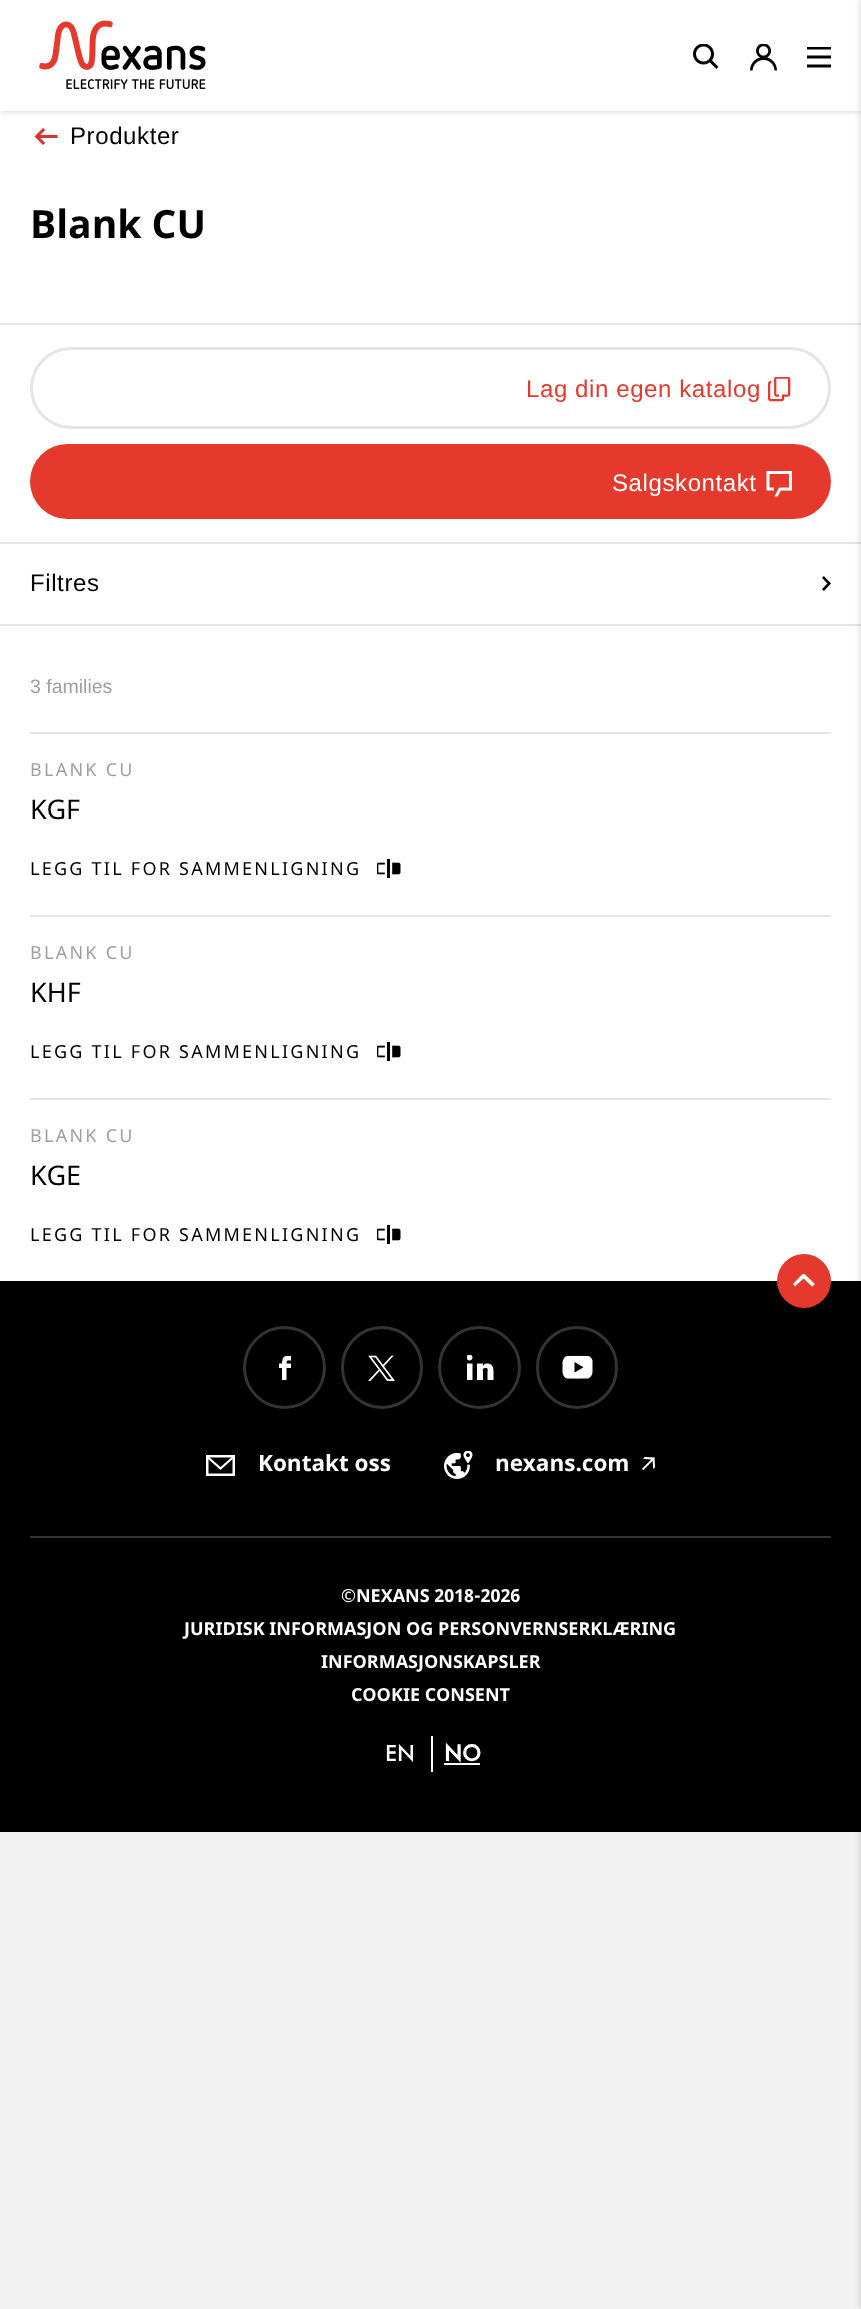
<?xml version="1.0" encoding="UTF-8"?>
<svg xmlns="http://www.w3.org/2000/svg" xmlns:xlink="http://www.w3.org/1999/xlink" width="861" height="2309">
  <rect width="100%" height="100%" fill="#f2f2f2" />
  <rect y="111" width="861" height="1170" fill="#ffffff" />
  <rect width="861" height="111" fill="#000000" fill-opacity="0.2" filter="blur(3px)" />
  <rect width="861" height="111" fill="#ffffff" />
  <image x="39" y="20" width="167" height="70" xlink:href="image1.png" />
  <image x="693" y="44" width="26" height="25" xlink:href="image2.png" />
  <image x="750" y="44" width="27" height="27" xlink:href="image3.png" />
  <image x="807" y="47" width="24" height="21" xlink:href="image4.png" />
  <image x="34" y="128" width="24" height="17" xlink:href="image5.png" />
  <rect y="323" width="861" height="2" fill="#e5e5e5" />
  <rect x="31.5" y="348.5" width="798" height="79" rx="39.5" fill="none" stroke="#e5e5e5" stroke-width="3" />
  <image x="768" y="377" width="23" height="25" xlink:href="image6.png" />
  <rect x="30" y="444" width="801" height="75" rx="37.5" fill="#e5392e" />
  <image x="766" y="471" width="26" height="26" xlink:href="image7.png" />
  <rect y="542" width="861" height="2" fill="#e5e5e5" />
  <rect y="624" width="861" height="2" fill="#e5e5e5" />
  <image x="822" y="576" width="9" height="15" xlink:href="image8.png" />
  <rect x="30" y="732" width="801" height="2" fill="#e5e5e5" />
  <image x="377" y="859" width="24" height="19" xlink:href="image9.png" />
  <rect x="30" y="915" width="801" height="2" fill="#e5e5e5" />
  <image x="377" y="1042" width="24" height="19" xlink:href="image9.png" />
  <rect x="30" y="1098" width="801" height="2" fill="#e5e5e5" />
  <image x="377" y="1225" width="24" height="19" xlink:href="image9.png" />
  <rect y="1281" width="861" height="551" fill="#000000" />
  <rect x="861" width="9" height="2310" fill="#000000" fill-opacity="0.2" filter="blur(3px)" />
  <circle cx="804" cy="1281" r="27" fill="#e5392e" />
  <path d="M 812 1286.5 l -8.5 -8 l -8.5 8 l -2 -2.5 l 9.5 -10 h 2 l 10.5 10 z" fill="#ffffff" />
  <rect x="30" y="1536" width="801" height="2" fill="#333333" />
  <circle cx="284.5" cy="1367.5" r="40" fill="none" stroke="#333333" stroke-width="3" />
  <image x="279" y="1356" width="12" height="24" xlink:href="image10.png" />
  <rect x="342.5" y="1327.5" width="79" height="80" rx="39.5" fill="none" stroke="#333333" stroke-width="3" />
  <image x="368" y="1355" width="27" height="26" xlink:href="image11.png" />
  <circle cx="479.5" cy="1367.5" r="40" fill="none" stroke="#333333" stroke-width="3" />
  <image x="467" y="1355" width="27" height="25" xlink:href="image12.png" />
  <rect x="537.5" y="1327.5" width="79" height="80" rx="39.5" fill="none" stroke="#333333" stroke-width="3" />
  <image x="562" y="1355" width="31" height="24" xlink:href="image13.png" />
  <rect x="207.25" y="1456.25" width="26.5" height="18.5" fill="none" stroke="#ffffff" stroke-width="2.5" />
  <path d="M 207 1456.5 l 13.5 12 l 13.5 -12" fill="none" stroke="#ffffff" stroke-width="2.2" />
  <image x="444" y="1451" width="29" height="28" xlink:href="image14.png" />
  <rect x="431" y="1736" width="2" height="36" fill="#ffffff" />
  <rect x="444" y="1763" width="36" height="2" fill="#ffffff" />
  <text x="70" y="144" style="font-family: Liberation Sans; font-size: 24px; letter-spacing: 0.6px; fill: #000000">Produkter</text>
  <text x="30" y="238" style="font-family: Noto Sans; font-size: 39px; font-weight: bold; fill: #000000">Blank CU</text>
  <text x="526" y="397" style="font-family: Liberation Sans; font-size: 24px; letter-spacing: 0.6px; fill: #e5392e">Lag din egen katalog</text>
  <text x="612" y="491" style="font-family: Liberation Sans; font-size: 24px; letter-spacing: 0.6px; fill: #ffffff">Salgskontakt</text>
  <text x="30" y="591" style="font-family: Liberation Sans; font-size: 24px; letter-spacing: 0.6px; fill: #000000">Filtres</text>
  <text x="30" y="693" style="font-family: Liberation Sans; font-size: 19.5px; fill: #a39e9e">3 families</text>
  <text x="30" y="776" style="font-family: Noto Sans; font-size: 18px; letter-spacing: 2.25px; fill: #a39e9e">BLANK CU</text>
  <text x="30" y="819" style="font-family: Noto Sans; font-size: 27px; fill: #000000">KGF</text>
  <text x="30" y="875" style="font-family: Noto Sans; font-size: 18px; letter-spacing: 2.25px; fill: #000000">LEGG TIL FOR SAMMENLIGNING</text>
  <text x="30" y="959" style="font-family: Noto Sans; font-size: 18px; letter-spacing: 2.25px; fill: #a39e9e">BLANK CU</text>
  <text x="30" y="1002" style="font-family: Noto Sans; font-size: 27px; fill: #000000">KHF</text>
  <text x="30" y="1058" style="font-family: Noto Sans; font-size: 18px; letter-spacing: 2.25px; fill: #000000">LEGG TIL FOR SAMMENLIGNING</text>
  <text x="30" y="1142" style="font-family: Noto Sans; font-size: 18px; letter-spacing: 2.25px; fill: #a39e9e">BLANK CU</text>
  <text x="30" y="1185" style="font-family: Noto Sans; font-size: 27px; fill: #000000">KGE</text>
  <text x="30" y="1241" style="font-family: Noto Sans; font-size: 18px; letter-spacing: 2.25px; fill: #000000">LEGG TIL FOR SAMMENLIGNING</text>
  <text x="258" y="1471" style="font-family: Noto Sans; font-size: 22.5px; font-weight: bold; fill: #ffffff">Kontakt oss</text>
  <text x="495" y="1471" style="font-family: Noto Sans; font-size: 22.5px; font-weight: bold; fill: #ffffff">nexans.com</text>
  <text x="641" y="1471" style="font-family: 'Noto Sans Symbols 2'; font-size: 22.5px; font-weight: bold; fill: #ffffff">🡥</text>
  <text x="341" y="1602" style="font-family: Noto Sans; font-size: 18px; font-weight: bold; fill: #ffffff">©NEXANS 2018-2026</text>
  <text x="184" y="1635" style="font-family: Noto Sans; font-size: 18px; font-weight: bold; fill: #ffffff">JURIDISK INFORMASJON OG PERSONVERNSERKLÆRING</text>
  <text x="321" y="1668" style="font-family: Noto Sans; font-size: 18px; font-weight: bold; fill: #ffffff">INFORMASJONSKAPSLER</text>
  <text x="351" y="1701" style="font-family: Noto Sans; font-size: 18px; font-weight: bold; fill: #ffffff">COOKIE CONSENT</text>
  <text x="385" y="1761" style="font-family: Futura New; font-size: 24px; font-weight: 500; fill: #ffffff">EN</text>
  <text x="444" y="1761" style="font-family: Futura New; font-size: 24px; font-weight: bold; fill: #ffffff">NO</text>
</svg>
